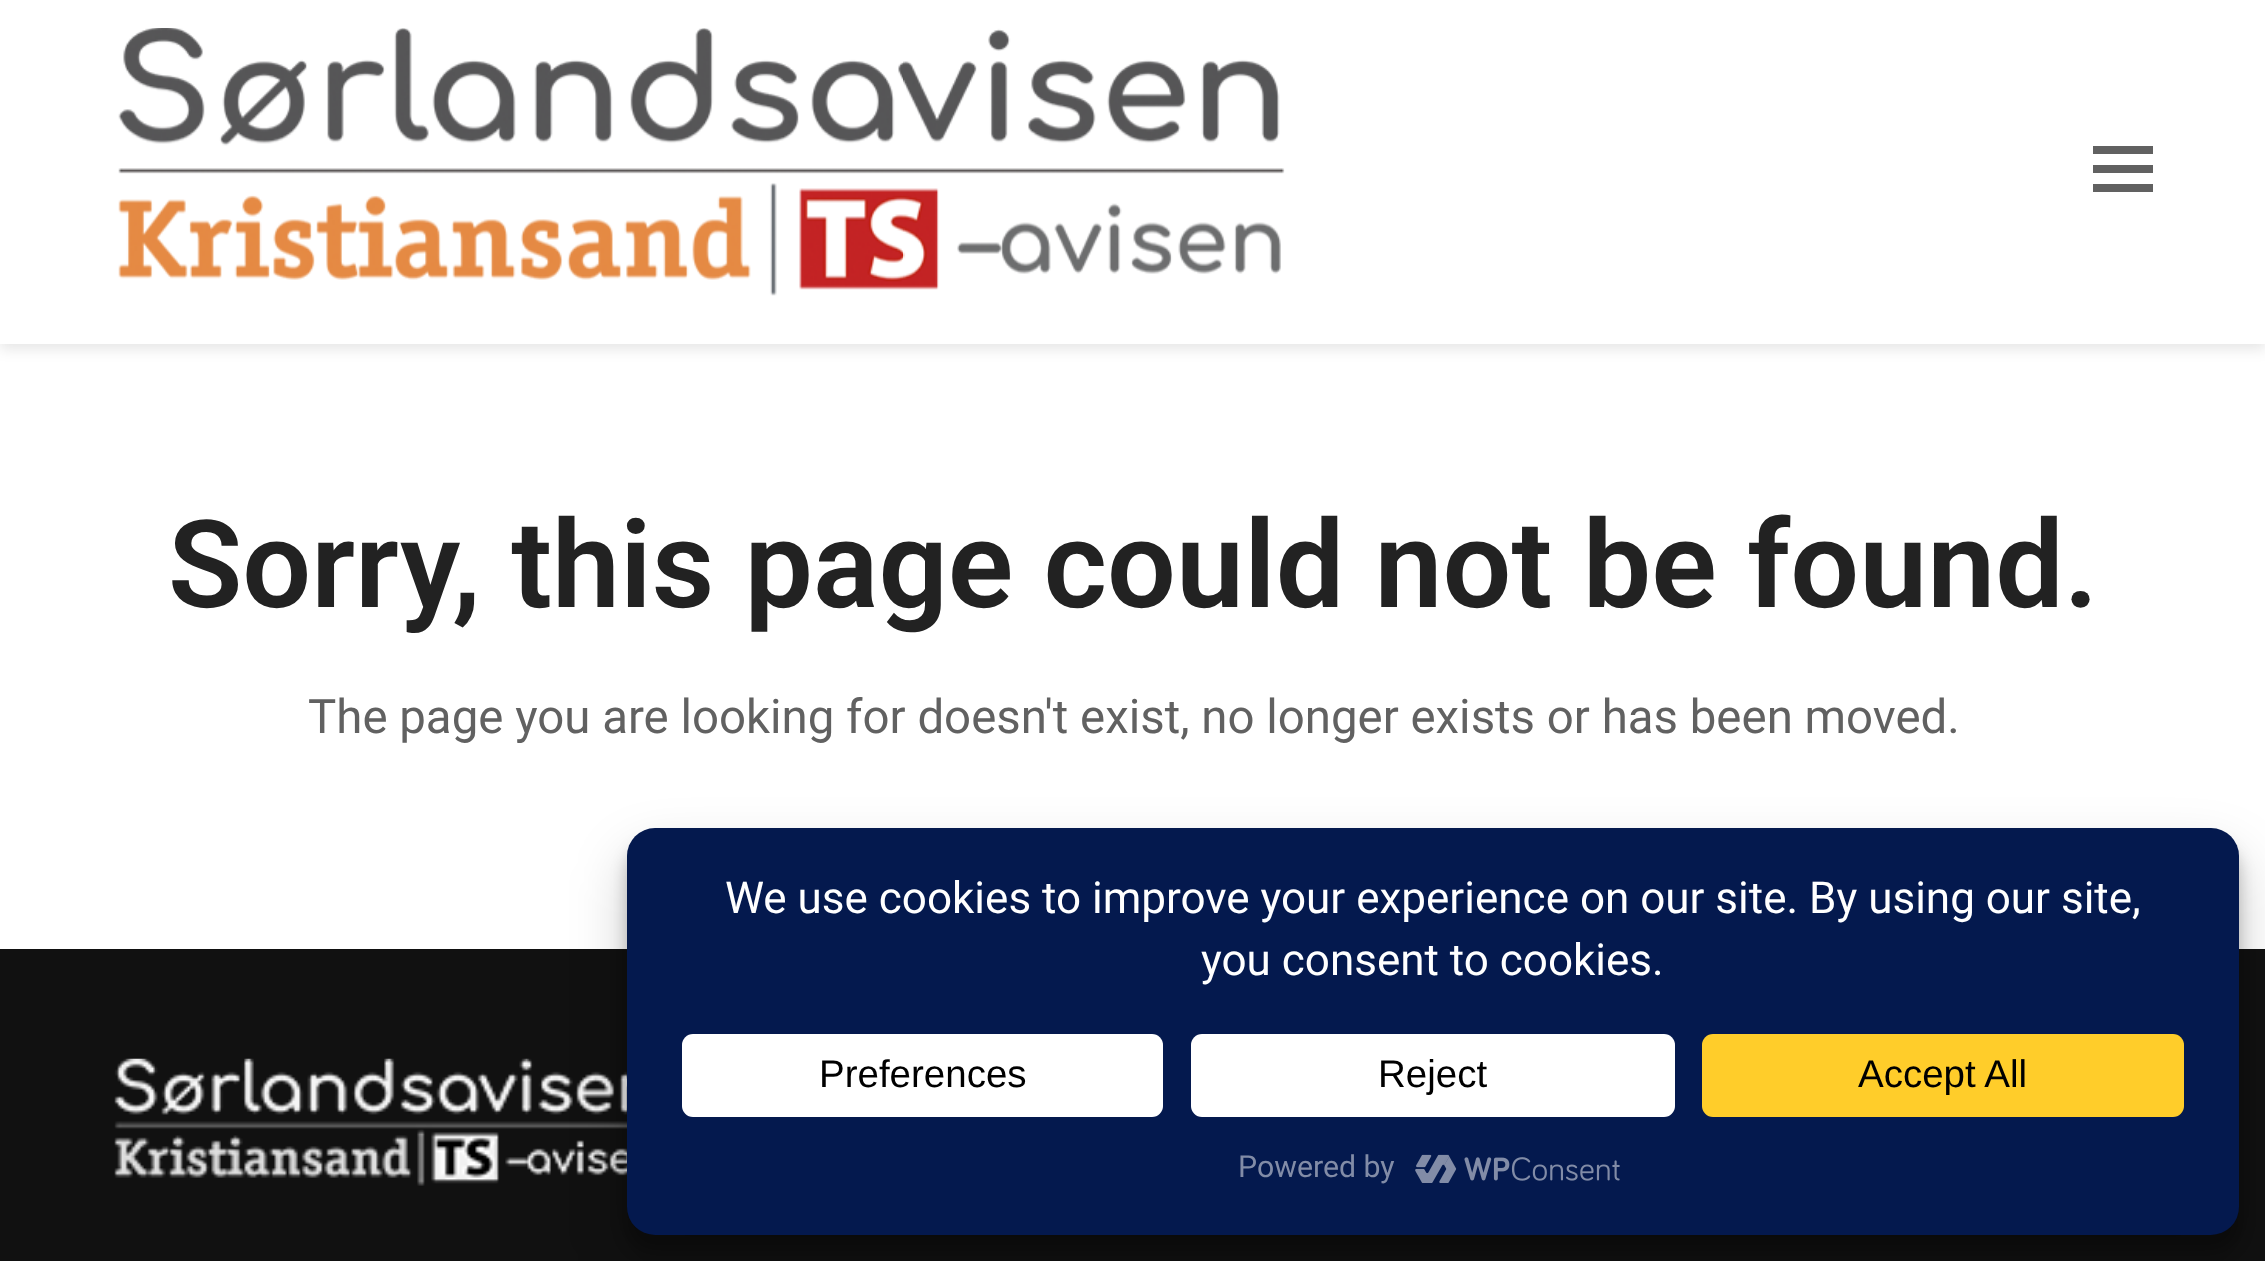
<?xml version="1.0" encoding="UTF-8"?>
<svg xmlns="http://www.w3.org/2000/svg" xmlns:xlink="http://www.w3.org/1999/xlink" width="2265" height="1261">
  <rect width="100%" height="100%" fill="#ffffff" />
  <rect y="6" width="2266" height="343" fill="#000000" fill-opacity="0.1" filter="blur(7px)" />
  <rect width="2265" height="344" fill="#ffffff" />
  <image x="118" y="28" width="1167" height="268" xlink:href="image1.png" />
  <rect x="2093" y="165" width="60" height="8" fill="#616161" />
  <rect x="2093" y="146" width="60" height="8" fill="#616161" />
  <rect x="2093" y="184" width="60" height="8" fill="#616161" />
  <rect y="949" width="2265" height="312" fill="#111111" />
  <image x="114" y="1058" width="513" height="128" xlink:href="image2.png" />
  <rect x="627" y="844" width="1612" height="407" rx="28" fill="#000000" fill-opacity="0.23" filter="blur(8px)" />
  <rect x="627" y="855" width="1612" height="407" rx="28" fill="#000000" fill-opacity="0.19" filter="blur(27.5px)" />
  <rect x="627" y="828" width="1612" height="407" rx="28" fill="#04194e" />
  <rect x="682" y="1034" width="481" height="83" rx="11" fill="#ffffff" />
  <rect x="1191" y="1034" width="484" height="83" rx="11" fill="#ffffff" />
  <rect x="1702" y="1034" width="482" height="83" rx="11" fill="#ffcd2a" />
  <image x="1415" y="1154" width="205" height="29" xlink:href="image3.png" />
  <text x="168" y="607" style="font-family: Roboto; font-size: 121.8px; font-weight: 600; fill: #222222">Sorry, this page could not be found.</text>
  <text x="308" y="733" style="font-family: Roboto; font-size: 47.4px; fill: #616161">The page you are looking for doesn't exist, no longer exists or has been moved.</text>
  <text x="725" y="913" style="font-family: Roboto; font-size: 44px; fill: #ffffff">We use cookies to improve your experience on our site. By using our site,</text>
  <text x="1201" y="975" style="font-family: Roboto; font-size: 44px; fill: #ffffff">you consent to cookies.</text>
  <text x="819" y="1087" style="font-family: Liberation Sans; font-size: 38.5px; fill: #000000">Preferences</text>
  <text x="1378" y="1087" style="font-family: Liberation Sans; font-size: 38.5px; fill: #000000">Reject</text>
  <text x="1858" y="1087" style="font-family: Liberation Sans; font-size: 38.5px; fill: #000000">Accept All</text>
  <text x="1238" y="1177" style="font-family: Roboto; font-size: 30.25px; fill: #828ca7">Powered by</text>
</svg>
